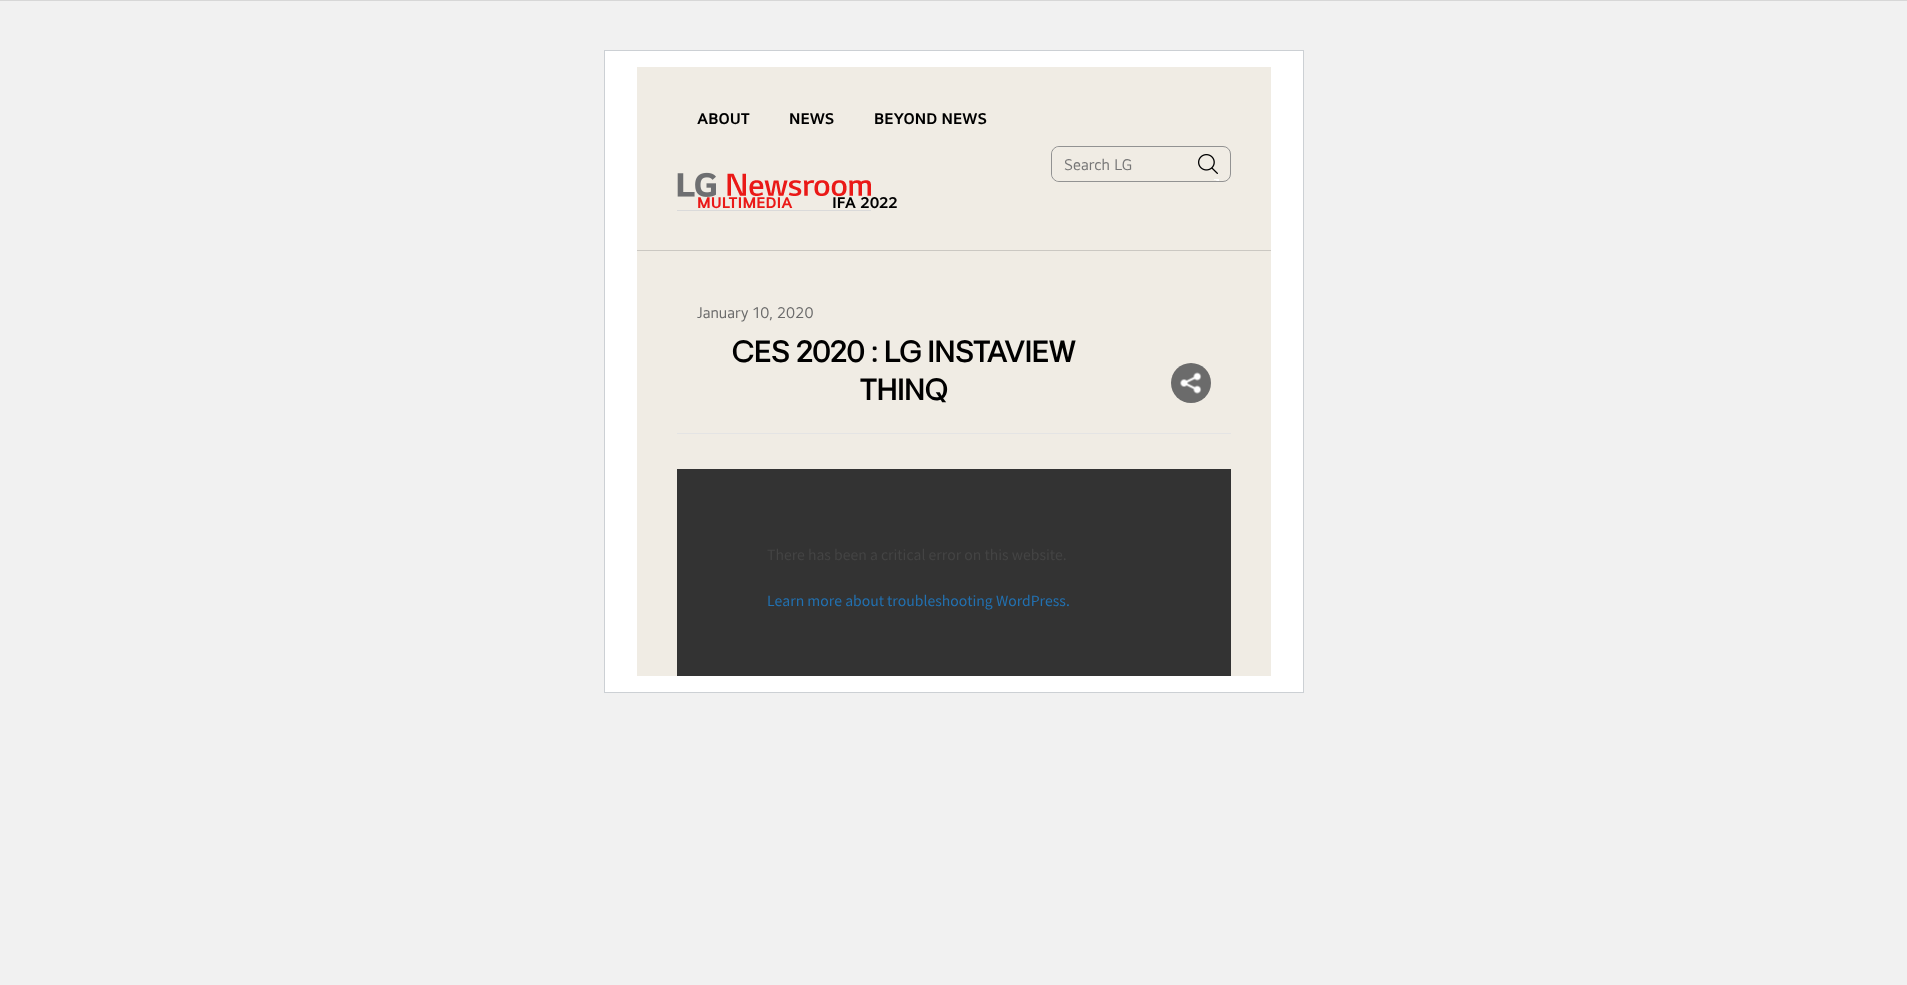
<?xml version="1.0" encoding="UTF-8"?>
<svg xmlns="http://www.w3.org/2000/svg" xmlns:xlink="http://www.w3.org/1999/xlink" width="1907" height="985">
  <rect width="100%" height="100%" fill="#f1f1f1" />
  <rect x="604.5" y="50.5" width="699" height="642" fill="#ffffff" stroke="#ccd0d4" />
  <rect x="637" y="67" width="634" height="609" fill="#f0ece4" />
  <rect width="1907" height="1" fill="#d7d7d7" />
  <rect x="637" y="250" width="634" height="1" fill="#cbc8c2" />
  <rect x="1051.5" y="146.5" width="179" height="35" rx="7.5" fill="none" stroke="#929292" />
  <path d="M 1060 147 h 130 v 34 h -130 c -4.5 0 -8 -3.5 -8 -8 v -18 c 0 -4.5 3.5 -8 8 -8 z" fill="#f0ece4" />
  <image x="1198" y="154" width="21" height="27" xlink:href="image1.png" />
  <rect x="677" y="210" width="194" height="1" fill="#dadada" />
  <image x="677" y="172" width="194" height="25" xlink:href="image2.png" />
  <rect x="677" y="433" width="554" height="1" fill="#e4e4e4" />
  <circle cx="1191" cy="383" r="20" fill="#6b6b6b" />
  <image x="1180" y="372" width="22" height="22" xlink:href="image3.png" />
  <rect x="677" y="469" width="554" height="207" fill="#333333" />
  <text x="697" y="124" style="font-family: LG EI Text; font-size: 16px; font-weight: bold; fill: #000000">ABOUT</text>
  <text x="789" y="124" style="font-family: LG EI Text; font-size: 16px; font-weight: bold; fill: #000000">NEWS</text>
  <text x="874" y="124" style="font-family: LG EI Text; font-size: 16px; font-weight: bold; fill: #000000">BEYOND NEWS</text>
  <text x="697" y="208" style="font-family: LG EI Text; font-size: 16px; font-weight: bold; fill: #ea1917">MULTIMEDIA</text>
  <text x="832" y="208" style="font-family: LG EI Text; font-size: 16px; font-weight: bold; fill: #000000">IFA 2022</text>
  <text x="1064" y="170" style="font-family: LG EI Text; font-size: 16px; fill: #767676">Search LG</text>
  <text x="697" y="318" style="font-family: LG EI Text; font-size: 16px; fill: #6b6b6b">January 10, 2020</text>
  <text x="732" y="362" style="font-family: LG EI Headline; font-size: 32px; font-weight: 600; fill: #000000">CES 2020 : LG INSTAVIEW</text>
  <text x="860" y="400" style="font-family: LG EI Headline; font-size: 32px; font-weight: 600; fill: #000000">THINQ</text>
  <text x="767" y="560" style="font-family: Noto Sans CJK KR; font-size: 14px; fill: #444444">There has been a critical error on this website.</text>
  <text x="767" y="606" style="font-family: Noto Sans CJK KR; font-size: 14px; fill: #2271b1">Learn more about troubleshooting WordPress.</text>
</svg>
